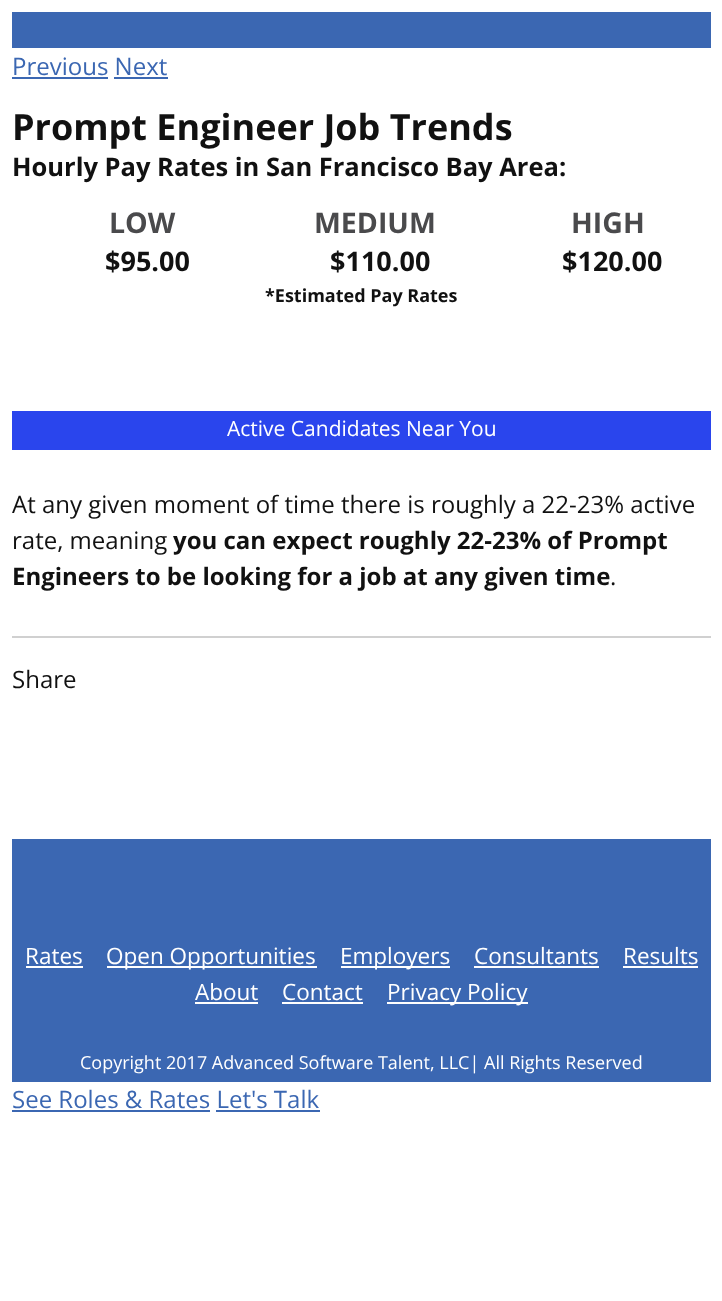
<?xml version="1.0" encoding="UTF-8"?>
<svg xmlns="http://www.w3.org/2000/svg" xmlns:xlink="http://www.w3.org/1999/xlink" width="722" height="1301">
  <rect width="100%" height="100%" fill="#ffffff" />
  <rect x="12" y="12" width="699" height="36" fill="#3b67b2" />
  <rect x="12" y="77" width="96" height="2" fill="#3b67b2" />
  <rect x="114" y="77" width="54" height="2" fill="#3b67b2" />
  <rect x="12" y="411" width="699" height="39" fill="#2a45ed" />
  <rect x="12" y="636" width="699" height="2" fill="#d0d0d0" />
  <rect x="12" y="839" width="699" height="243" fill="#3b67b2" />
  <rect x="26" y="966" width="57" height="2" fill="#ffffff" />
  <rect x="107" y="966" width="210" height="2" fill="#ffffff" />
  <rect x="341" y="966" width="109" height="2" fill="#ffffff" />
  <rect x="474" y="966" width="125" height="2" fill="#ffffff" />
  <rect x="623" y="966" width="75" height="2" fill="#ffffff" />
  <rect x="195" y="1002" width="63" height="2" fill="#ffffff" />
  <rect x="282" y="1002" width="81" height="2" fill="#ffffff" />
  <rect x="387" y="1002" width="141" height="2" fill="#ffffff" />
  <rect x="12" y="1110" width="198" height="2" fill="#3b67b2" />
  <rect x="216" y="1110" width="104" height="2" fill="#3b67b2" />
  <text x="12" y="75" style="font-family: Open Sans; font-size: 24px; fill: #3b67b2">Previous Next</text>
  <text x="12" y="140" style="font-family: Open Sans; font-size: 36px; font-weight: bold; fill: #111111">Prompt Engineer Job Trends</text>
  <text x="12" y="176" style="font-family: Open Sans; font-size: 25.5px; font-weight: bold; fill: #111111">Hourly Pay Rates in San Francisco Bay Area:</text>
  <text x="109" y="233" style="font-family: Open Sans; font-size: 28.5px; font-weight: bold; fill: #4a4a4c">LOW</text>
  <text x="105" y="271" style="font-family: Open Sans; font-size: 27px; font-weight: bold; fill: #111111">$95.00</text>
  <text x="314" y="233" style="font-family: Open Sans; font-size: 28.5px; font-weight: bold; fill: #4a4a4c">MEDIUM</text>
  <text x="330" y="271" style="font-family: Open Sans; font-size: 27px; font-weight: bold; fill: #111111">$110.00</text>
  <text x="265" y="302" style="font-family: Open Sans; font-size: 18px; font-weight: bold; fill: #111111">*Estimated Pay Rates</text>
  <text x="571" y="233" style="font-family: Open Sans; font-size: 28.5px; font-weight: bold; fill: #4a4a4c">HIGH</text>
  <text x="562" y="271" style="font-family: Open Sans; font-size: 27px; font-weight: bold; fill: #111111">$120.00</text>
  <text x="227" y="436" style="font-family: Open Sans; font-size: 21px; fill: #ffffff">Active Candidates Near You</text>
  <text x="12" y="513" style="font-family: Open Sans; font-size: 24px; fill: #111111">At any given moment of time there is roughly a 22-23% active</text>
  <text x="12" y="549" style="font-family: Open Sans; font-size: 24px; fill: #111111">rate, meaning</text>
  <text x="173" y="549" style="font-family: Open Sans; font-size: 24px; font-weight: bold; fill: #111111">you can expect roughly 22-23% of Prompt</text>
  <text x="12" y="585" style="font-family: Open Sans; font-size: 24px; font-weight: bold; fill: #111111">Engineers to be looking for a job at any given time</text>
  <text x="610" y="585" style="font-family: Open Sans; font-size: 24px; fill: #111111">.</text>
  <text x="12" y="688" style="font-family: Open Sans; font-size: 24px; fill: #111111">Share</text>
  <text x="25" y="964" style="font-family: Open Sans; font-size: 22.5px; fill: #ffffff">Rates</text>
  <text x="106" y="964" style="font-family: Open Sans; font-size: 22.5px; fill: #ffffff">Open Opportunities</text>
  <text x="340" y="964" style="font-family: Open Sans; font-size: 22.5px; fill: #ffffff">Employers</text>
  <text x="474" y="964" style="font-family: Open Sans; font-size: 22.5px; fill: #ffffff">Consultants</text>
  <text x="623" y="964" style="font-family: Open Sans; font-size: 22.5px; fill: #ffffff">Results</text>
  <text x="195" y="1000" style="font-family: Open Sans; font-size: 22.5px; fill: #ffffff">About</text>
  <text x="282" y="1000" style="font-family: Open Sans; font-size: 22.5px; fill: #ffffff">Contact</text>
  <text x="387" y="1000" style="font-family: Open Sans; font-size: 22.5px; fill: #ffffff">Privacy Policy</text>
  <text x="80" y="1069" style="font-family: Open Sans; font-size: 18px; fill: #ffffff">Copyright 2017 Advanced Software Talent, LLC| All Rights Reserved</text>
  <text x="12" y="1108" style="font-family: Open Sans; font-size: 24px; fill: #3b67b2">See Roles &amp; Rates Let's Talk</text>
</svg>
